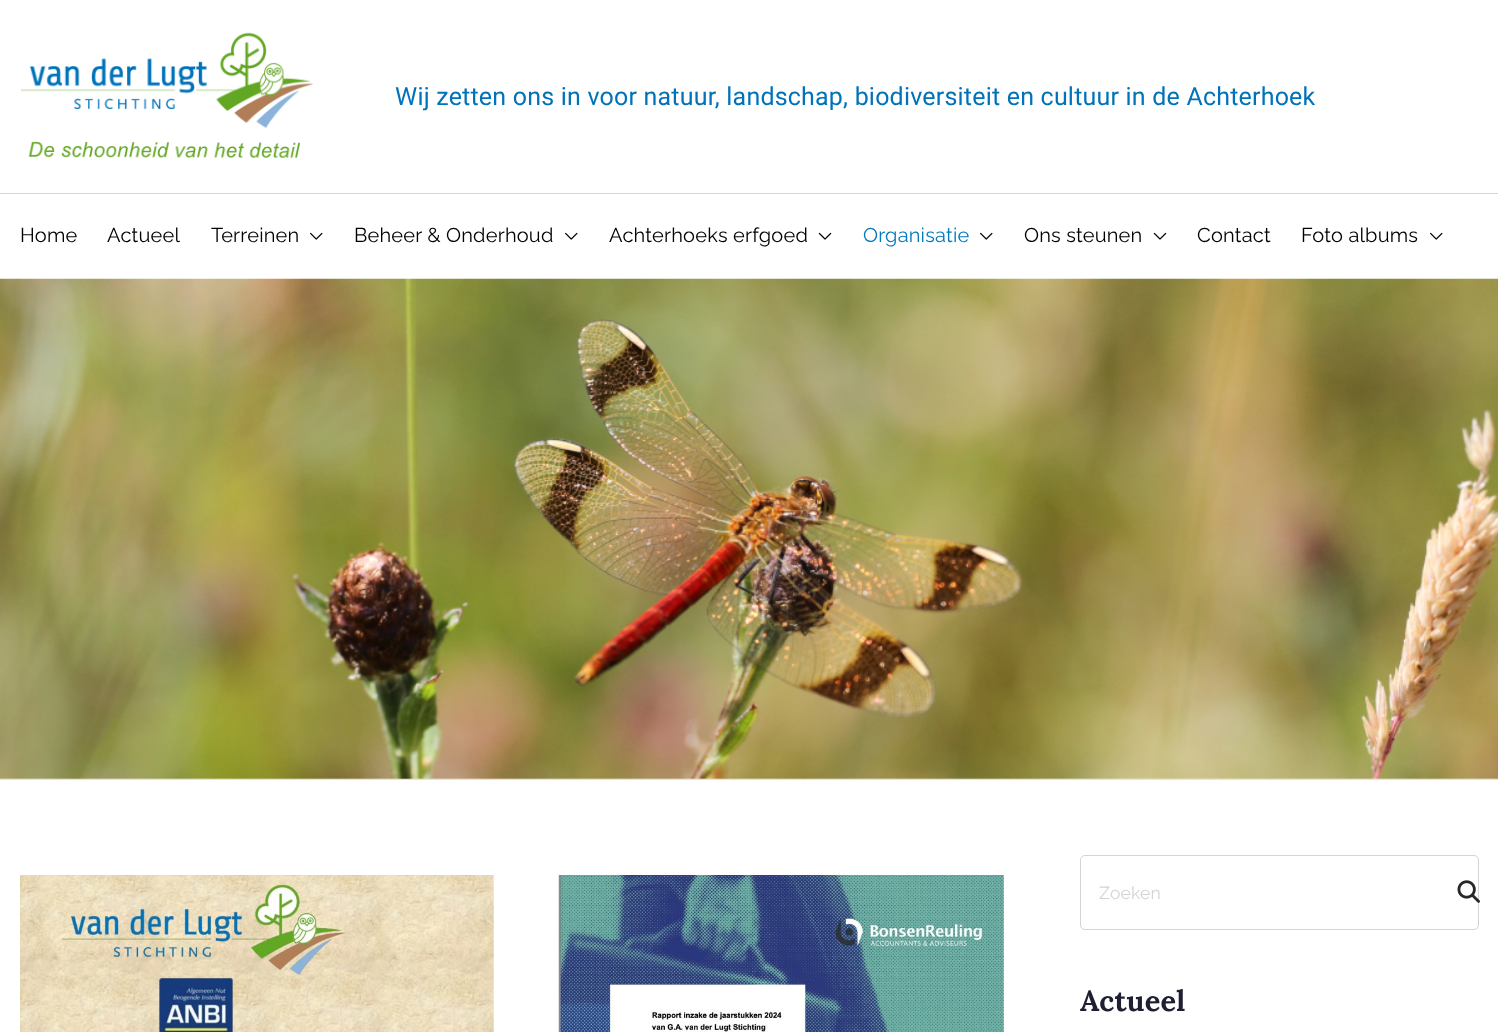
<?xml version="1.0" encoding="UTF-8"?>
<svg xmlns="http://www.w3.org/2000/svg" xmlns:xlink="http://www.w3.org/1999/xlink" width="1498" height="1032">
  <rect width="100%" height="100%" fill="#ffffff" />
  <rect y="779" width="1498" height="1" fill="#e4e4e7" />
  <image x="21" y="32" width="292" height="126" xlink:href="image1.png" />
  <rect y="193" width="1498" height="1" fill="#d4d4d8" />
  <image x="310" y="232" width="13" height="8" xlink:href="image2.png" />
  <image x="565" y="232" width="13" height="8" xlink:href="image2.png" />
  <image x="818" y="232" width="14" height="8" xlink:href="image3.png" />
  <image x="980" y="232" width="13" height="8" xlink:href="image2.png" />
  <image x="1153" y="232" width="14" height="8" xlink:href="image3.png" />
  <image x="1430" y="232" width="13" height="8" xlink:href="image2.png" />
  <image x="0" y="278" width="1498" height="501" xlink:href="image4.png" />
  <image x="20" y="875" width="474" height="157" xlink:href="image5.png" />
  <image x="558" y="875" width="446" height="157" xlink:href="image6.png" />
  <rect x="1080.5" y="855.5" width="398" height="74" rx="4.5" fill="none" stroke="#d4d4d8" />
  <image x="1457" y="880" width="23" height="23" xlink:href="image7.png" />
  <text x="395" y="105" style="font-family: Roboto; font-size: 25px; letter-spacing: 0.2px; fill: #0072b9">Wij zetten ons in voor natuur, landschap, biodiversiteit en cultuur in de Achterhoek</text>
  <text x="20" y="242" style="font-family: Raleway; font-size: 20px; letter-spacing: 0.2px; fill: #000000">Home</text>
  <text x="107" y="242" style="font-family: Raleway; font-size: 20px; letter-spacing: 0.2px; fill: #000000">Actueel</text>
  <text x="211" y="242" style="font-family: Raleway; font-size: 20px; letter-spacing: 0.2px; fill: #000000">Terreinen</text>
  <text x="354" y="242" style="font-family: Raleway; font-size: 20px; letter-spacing: 0.2px; fill: #000000">Beheer &amp; Onderhoud</text>
  <text x="609" y="242" style="font-family: Raleway; font-size: 20px; letter-spacing: 0.2px; fill: #000000">Achterhoeks erfgoed</text>
  <text x="863" y="242" style="font-family: Raleway; font-size: 20px; letter-spacing: 0.2px; fill: #027abb">Organisatie</text>
  <text x="1024" y="242" style="font-family: Raleway; font-size: 20px; letter-spacing: 0.2px; fill: #000000">Ons steunen</text>
  <text x="1197" y="242" style="font-family: Raleway; font-size: 20px; letter-spacing: 0.2px; fill: #000000">Contact</text>
  <text x="1301" y="242" style="font-family: Raleway; font-size: 20px; letter-spacing: 0.2px; fill: #000000">Foto albums</text>
  <text x="1099" y="899" style="font-family: Raleway; font-size: 17.5px; letter-spacing: 0.2px; fill: #d4d4d8">Zoeken</text>
  <text x="1080" y="1011" style="font-family: Lora; font-size: 29px; font-weight: bold; letter-spacing: 0.2px; fill: #1f1f32">Actueel</text>
</svg>
